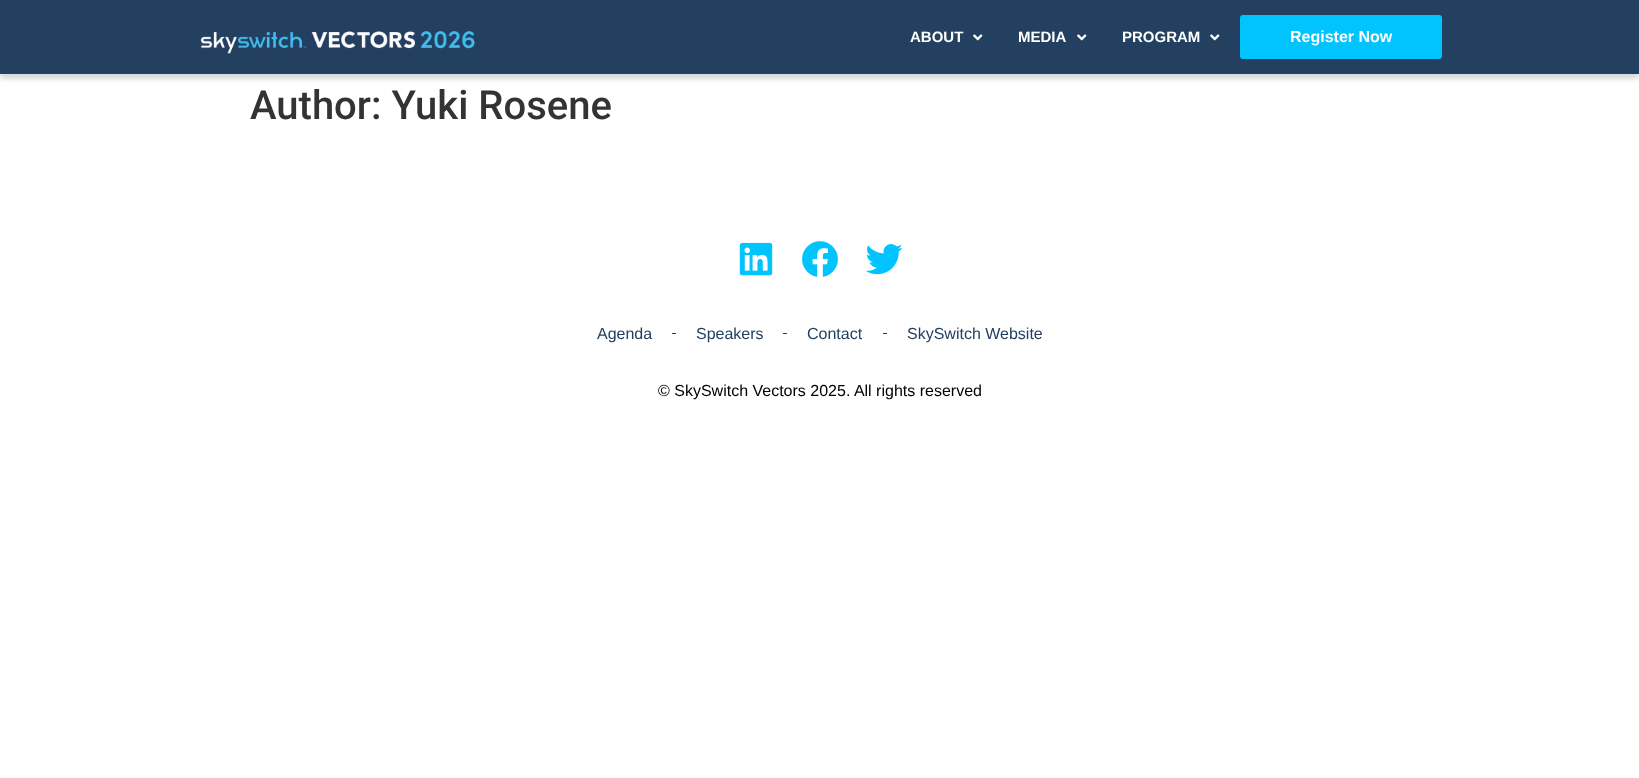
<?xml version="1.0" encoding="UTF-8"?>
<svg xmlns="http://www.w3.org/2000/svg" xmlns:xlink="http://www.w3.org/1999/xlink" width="1639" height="778">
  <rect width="100%" height="100%" fill="#ffffff" />
  <rect y="5" width="1639" height="74" fill="#000000" fill-opacity="0.15" filter="blur(2.5px)" />
  <rect width="1639" height="74" fill="#244061" />
  <image x="200" y="31" width="275" height="23" xlink:href="image1.png" />
  <image x="973" y="34" width="10" height="7" xlink:href="image2.png" />
  <image x="1077" y="34" width="10" height="7" xlink:href="image2.png" />
  <image x="1210" y="34" width="10" height="7" xlink:href="image2.png" />
  <rect x="1240" y="15" width="202" height="44" rx="3" fill="#01c4ff" />
  <image x="739" y="242" width="34" height="34" xlink:href="image3.png" />
  <image x="802" y="241" width="36" height="36" xlink:href="image4.png" />
  <image x="865" y="244" width="38" height="31" xlink:href="image5.png" />
  <rect x="672" y="333" width="4" height="1" fill="#244061" />
  <rect x="783" y="333" width="4" height="1" fill="#244061" />
  <rect x="883" y="333" width="4" height="1" fill="#244061" />
  <text x="910" y="42" style="font-family: Liberation Sans; font-size: 15px; font-weight: bold; fill: #ffffff">ABOUT</text>
  <text x="1018" y="42" style="font-family: Liberation Sans; font-size: 15px; font-weight: bold; fill: #ffffff">MEDIA</text>
  <text x="1122" y="42" style="font-family: Liberation Sans; font-size: 15px; font-weight: bold; fill: #ffffff">PROGRAM</text>
  <text x="1290" y="42" style="font-family: Liberation Sans; font-size: 16px; font-weight: bold; fill: #ffffff">Register Now</text>
  <text x="250" y="119" style="font-family: Roboto; font-size: 40px; font-weight: 500; fill: #333333">Author: Yuki Rosene</text>
  <text x="597" y="339" style="font-family: Liberation Sans; font-size: 16px; fill: #244061">Agenda</text>
  <text x="696" y="339" style="font-family: Liberation Sans; font-size: 16px; fill: #244061">Speakers</text>
  <text x="807" y="339" style="font-family: Liberation Sans; font-size: 16px; fill: #244061">Contact</text>
  <text x="907" y="339" style="font-family: Liberation Sans; font-size: 16px; fill: #244061">SkySwitch Website</text>
  <text x="658" y="396" style="font-family: Liberation Sans; font-size: 16px; fill: #000000">© SkySwitch Vectors 2025. All rights reserved</text>
</svg>
